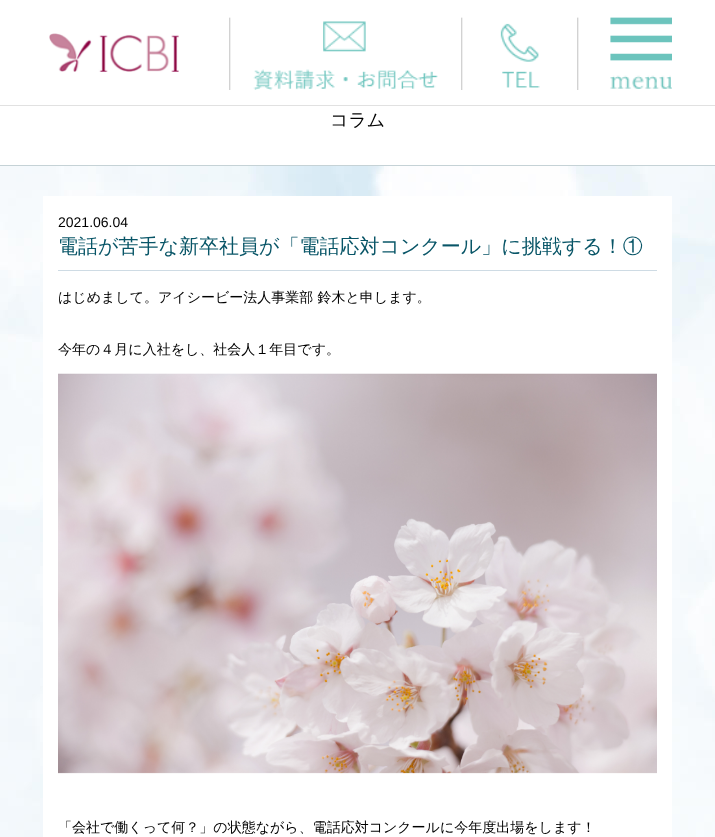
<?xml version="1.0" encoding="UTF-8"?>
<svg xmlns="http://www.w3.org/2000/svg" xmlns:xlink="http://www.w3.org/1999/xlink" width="715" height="837">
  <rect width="100%" height="100%" fill="#ffffff" />
  <rect y="105" width="715" height="1" fill="#e1e1e1" />
  <image x="49" y="33" width="130" height="39" xlink:href="image1.png" />
  <image x="229" y="17" width="209" height="73" xlink:href="image2.png" />
  <image x="461" y="17" width="79" height="73" xlink:href="image3.png" />
  <image x="577" y="17" width="95" height="73" xlink:href="image4.png" />
  <rect y="165" width="715" height="1" fill="#c5d2d6" />
  <image x="0" y="166" width="715" height="671" xlink:href="image5.png" />
  <rect x="43" y="196" width="629" height="641" fill="#ffffff" />
  <rect x="58" y="270" width="599" height="1" fill="#cedbe4" />
  <image x="58" y="373" width="599" height="401" xlink:href="image6.png" />
  <text x="330" y="126" style="font-family: WenQuanYi Zen Hei; font-size: 18px; font-weight: 500; fill: #000000">コラム</text>
  <text x="58" y="227" style="font-family: Liberation Sans; font-size: 14px; fill: #000000">2021.06.04</text>
  <text x="58" y="253" style="font-family: WenQuanYi Zen Hei; font-size: 20px; font-weight: 500; fill: #085567">電話が苦手な新卒社員が「電話応対コンクール」に挑戦する！①</text>
  <text x="58" y="302" style="font-family: WenQuanYi Zen Hei; font-size: 14px; font-weight: 500; fill: #000000">はじめまして。アイシービー法人事業部 鈴木と申します。</text>
  <text x="58" y="354" style="font-family: WenQuanYi Zen Hei; font-size: 14px; font-weight: 500; fill: #000000">今年の４月に入社をし、社会人１年目です。</text>
  <text x="58" y="832" style="font-family: WenQuanYi Zen Hei; font-size: 14px; font-weight: 500; fill: #000000">「会社で働くって何？」の状態ながら、電話応対コンクールに今年度出場をします！</text>
</svg>
